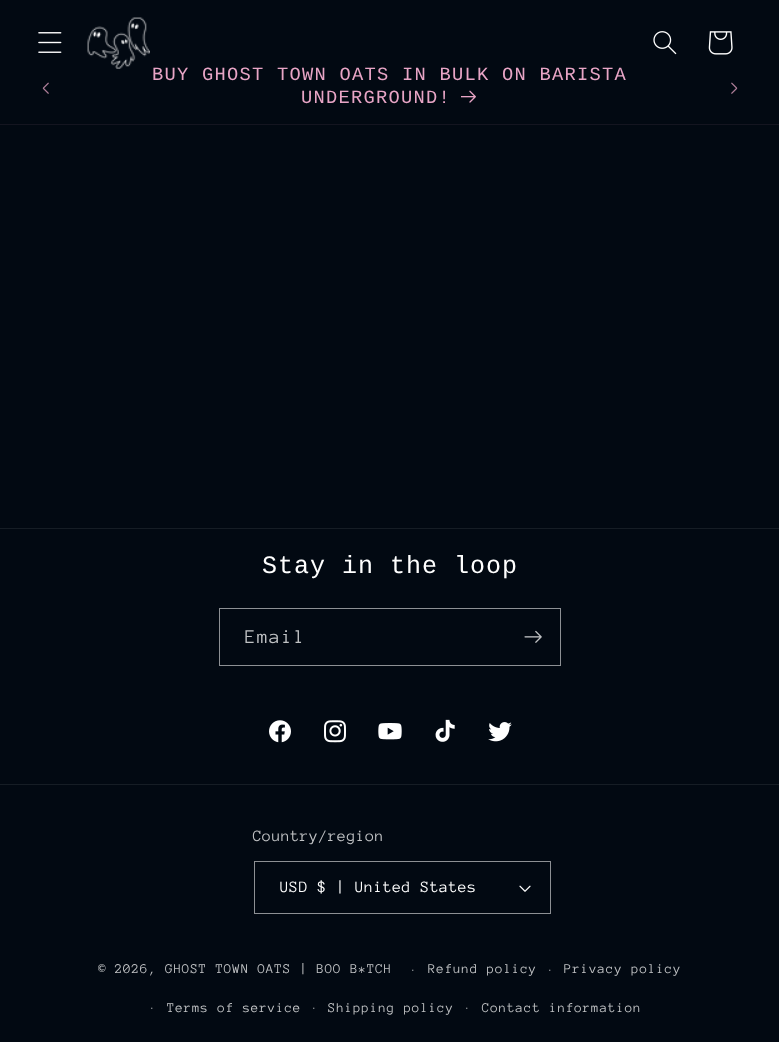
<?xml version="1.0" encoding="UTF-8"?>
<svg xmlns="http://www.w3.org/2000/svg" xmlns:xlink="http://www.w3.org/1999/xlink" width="779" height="1042">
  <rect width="100%" height="100%" fill="#020912" />
  <image x="38" y="32" width="24" height="21" xlink:href="image1.png" />
  <image x="87" y="17" width="63" height="52" xlink:href="image2.png" />
  <image x="653" y="31" width="24" height="24" xlink:href="image3.png" />
  <image x="708" y="31" width="25" height="24" xlink:href="image4.png" />
  <rect y="124" width="779" height="1" fill="#141520" />
  <image x="42" y="82" width="7" height="12" xlink:href="image5.png" />
  <image x="461" y="90" width="15" height="13" xlink:href="image6.png" />
  <image x="731" y="82" width="7" height="12" xlink:href="image7.png" />
  <rect y="528" width="779" height="1" fill="#161d25" />
  <rect x="219.5" y="608.5" width="341" height="57" fill="none" stroke="#8d9094" />
  <image x="524" y="630" width="18" height="13" xlink:href="image8.png" />
  <image x="269" y="720" width="22" height="23" xlink:href="image9.png" />
  <image x="324" y="720" width="22" height="23" xlink:href="image10.png" />
  <image x="378" y="723" width="24" height="17" xlink:href="image11.png" />
  <image x="435" y="719" width="20" height="23" xlink:href="image12.png" />
  <image x="488" y="722" width="24" height="20" xlink:href="image13.png" />
  <rect y="784" width="779" height="1" fill="#161d25" />
  <image x="519" y="885" width="12" height="7" xlink:href="image14.png" />
  <rect x="254.5" y="861.5" width="296" height="52" fill="none" stroke="#8d9094" />
  <text x="152" y="80" style="font-family: Liberation Mono; font-size: 18.75px; letter-spacing: 1.25px; fill: #e8a5c6">BUY GHOST TOWN OATS IN BULK ON BARISTA</text>
  <text x="301" y="103" style="font-family: Liberation Mono; font-size: 18.75px; letter-spacing: 1.25px; fill: #e8a5c6">UNDERGROUND!</text>
  <text x="262" y="573" style="font-family: Liberation Mono; font-size: 25px; letter-spacing: 1px; fill: #ffffff">Stay in the loop</text>
  <text x="245" y="643" style="font-family: Anonymous Pro; font-size: 20px; letter-spacing: 1.25px; fill: #c0c2c4">Email</text>
  <text x="253" y="841" style="font-family: Anonymous Pro; font-size: 16.25px; letter-spacing: 0.5px; fill: #c0c2c4">Country/region</text>
  <text x="280" y="892" style="font-family: Anonymous Pro; font-size: 16.25px; letter-spacing: 0.5px; fill: #ffffff">USD $ | United States</text>
  <text x="98" y="973" style="font-family: Anonymous Pro; font-size: 13.75px; letter-spacing: 0.9px; fill: #c0c2c4">© 2026, GHOST TOWN OATS | BOO B*TCH</text>
  <text x="410" y="973" style="font-family: Anonymous Pro; font-size: 12px; letter-spacing: 0.9px; fill: #c0c2c4">·</text>
  <text x="428" y="973" style="font-family: Anonymous Pro; font-size: 13.75px; letter-spacing: 0.9px; fill: #c0c2c4">Refund policy</text>
  <text x="547" y="973" style="font-family: Anonymous Pro; font-size: 12px; letter-spacing: 0.9px; fill: #c0c2c4">·</text>
  <text x="564" y="973" style="font-family: Anonymous Pro; font-size: 13.75px; letter-spacing: 0.9px; fill: #c0c2c4">Privacy policy</text>
  <text x="149" y="1011" style="font-family: Anonymous Pro; font-size: 12px; letter-spacing: 0.9px; fill: #c0c2c4">·</text>
  <text x="167" y="1012" style="font-family: Anonymous Pro; font-size: 13.75px; letter-spacing: 0.9px; fill: #c0c2c4">Terms of service</text>
  <text x="311" y="1011" style="font-family: Anonymous Pro; font-size: 12px; letter-spacing: 0.9px; fill: #c0c2c4">·</text>
  <text x="328" y="1012" style="font-family: Anonymous Pro; font-size: 13.75px; letter-spacing: 0.9px; fill: #c0c2c4">Shipping policy</text>
  <text x="464" y="1011" style="font-family: Anonymous Pro; font-size: 12px; letter-spacing: 0.9px; fill: #c0c2c4">·</text>
  <text x="482" y="1012" style="font-family: Anonymous Pro; font-size: 13.75px; letter-spacing: 0.9px; fill: #c0c2c4">Contact information</text>
</svg>
